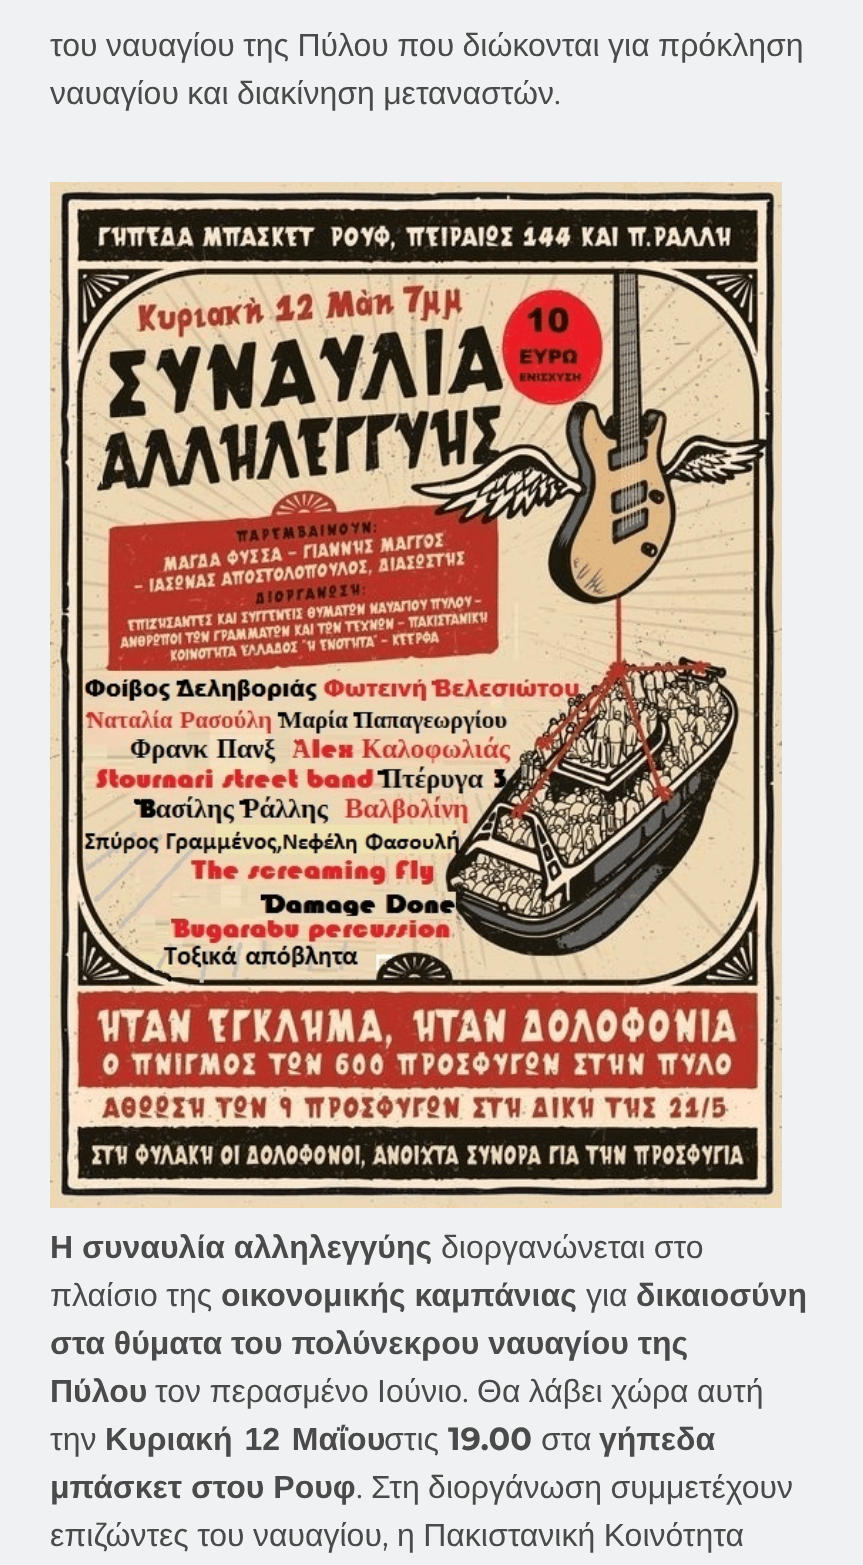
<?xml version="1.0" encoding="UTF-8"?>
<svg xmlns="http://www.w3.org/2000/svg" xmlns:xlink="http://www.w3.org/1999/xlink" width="863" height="1565">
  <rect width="100%" height="100%" fill="#f0f1f2" />
  <image x="50" y="182" width="732" height="1026" xlink:href="image1.png" />
  <text x="50" y="56" word-spacing="-0.5" style="font-family: Liberation Sans; font-size: 32px; fill: #4a4a4a">του ναυαγίου της Πύλου που διώκονται για πρόκληση</text>
  <text x="50" y="104" word-spacing="-0.5" style="font-family: Liberation Sans; font-size: 32px; fill: #4a4a4a">ναυαγίου και διακίνηση μεταναστών</text>
  <text x="554" y="104" style="font-family: Montserrat; font-size: 32px; fill: #4a4a4a">.</text>
  <text x="50" y="1258" style="font-family: Liberation Sans; font-size: 32px; font-weight: bold; fill: #4a4a4a">Η συναυλία αλληλεγγύης</text>
  <text x="441" y="1258" word-spacing="-0.5" style="font-family: Liberation Sans; font-size: 32px; fill: #4a4a4a">διοργανώνεται στο</text>
  <text x="50" y="1306" word-spacing="-0.5" style="font-family: Liberation Sans; font-size: 32px; fill: #4a4a4a">πλαίσιο της</text>
  <text x="221" y="1306" style="font-family: Liberation Sans; font-size: 32px; font-weight: bold; fill: #4a4a4a">οικονομικής καμπάνιας</text>
  <text x="586" y="1306" style="font-family: Liberation Sans; font-size: 32px; fill: #4a4a4a">για</text>
  <text x="636" y="1306" style="font-family: Liberation Sans; font-size: 32px; font-weight: bold; fill: #4a4a4a">δικαιοσύνη</text>
  <text x="50" y="1354" style="font-family: Liberation Sans; font-size: 32px; font-weight: bold; fill: #4a4a4a">στα θύματα του πολύνεκρου ναυαγίου της</text>
  <text x="50" y="1402" style="font-family: Liberation Sans; font-size: 32px; font-weight: bold; fill: #4a4a4a">Πύλου</text>
  <text x="155" y="1402" word-spacing="-0.5" style="font-family: Liberation Sans; font-size: 32px; fill: #4a4a4a">τον περασμένο Ιούνιο</text>
  <text x="462" y="1402" style="font-family: Montserrat; font-size: 32px; fill: #4a4a4a">.</text>
  <text x="477" y="1402" word-spacing="-0.5" style="font-family: Liberation Sans; font-size: 32px; fill: #4a4a4a">Θα λάβει χώρα αυτή</text>
  <text x="50" y="1450" style="font-family: Liberation Sans; font-size: 32px; fill: #4a4a4a">την</text>
  <text x="105" y="1450" word-spacing="3" style="font-family: Liberation Sans; font-size: 32px; font-weight: bold; fill: #4a4a4a">Κυριακή 12 Μαΐου</text>
  <text x="384" y="1450" style="font-family: Liberation Sans; font-size: 32px; fill: #4a4a4a">στις</text>
  <text x="448" y="1450" style="font-family: Montserrat; font-size: 32px; font-weight: bold; fill: #4a4a4a">19.00</text>
  <text x="541" y="1450" style="font-family: Liberation Sans; font-size: 32px; fill: #4a4a4a">στα</text>
  <text x="599" y="1450" style="font-family: Liberation Sans; font-size: 32px; font-weight: bold; fill: #4a4a4a">γήπεδα</text>
  <text x="50" y="1498" style="font-family: Liberation Sans; font-size: 32px; font-weight: bold; fill: #4a4a4a">μπάσκετ στου Ρουφ</text>
  <text x="356" y="1498" style="font-family: Montserrat; font-size: 32px; fill: #4a4a4a">.</text>
  <text x="371" y="1498" word-spacing="-0.5" style="font-family: Liberation Sans; font-size: 32px; fill: #4a4a4a">Στη διοργάνωση συμμετέχουν</text>
  <text x="50" y="1546" word-spacing="-0.5" style="font-family: Liberation Sans; font-size: 32px; fill: #4a4a4a">επιζώντες του ναυαγίου</text>
  <text x="382" y="1546" style="font-family: Montserrat; font-size: 32px; fill: #4a4a4a">,</text>
  <text x="397" y="1546" word-spacing="-0.5" style="font-family: Liberation Sans; font-size: 32px; fill: #4a4a4a">η Πακιστανική Κοινότητα</text>
</svg>
